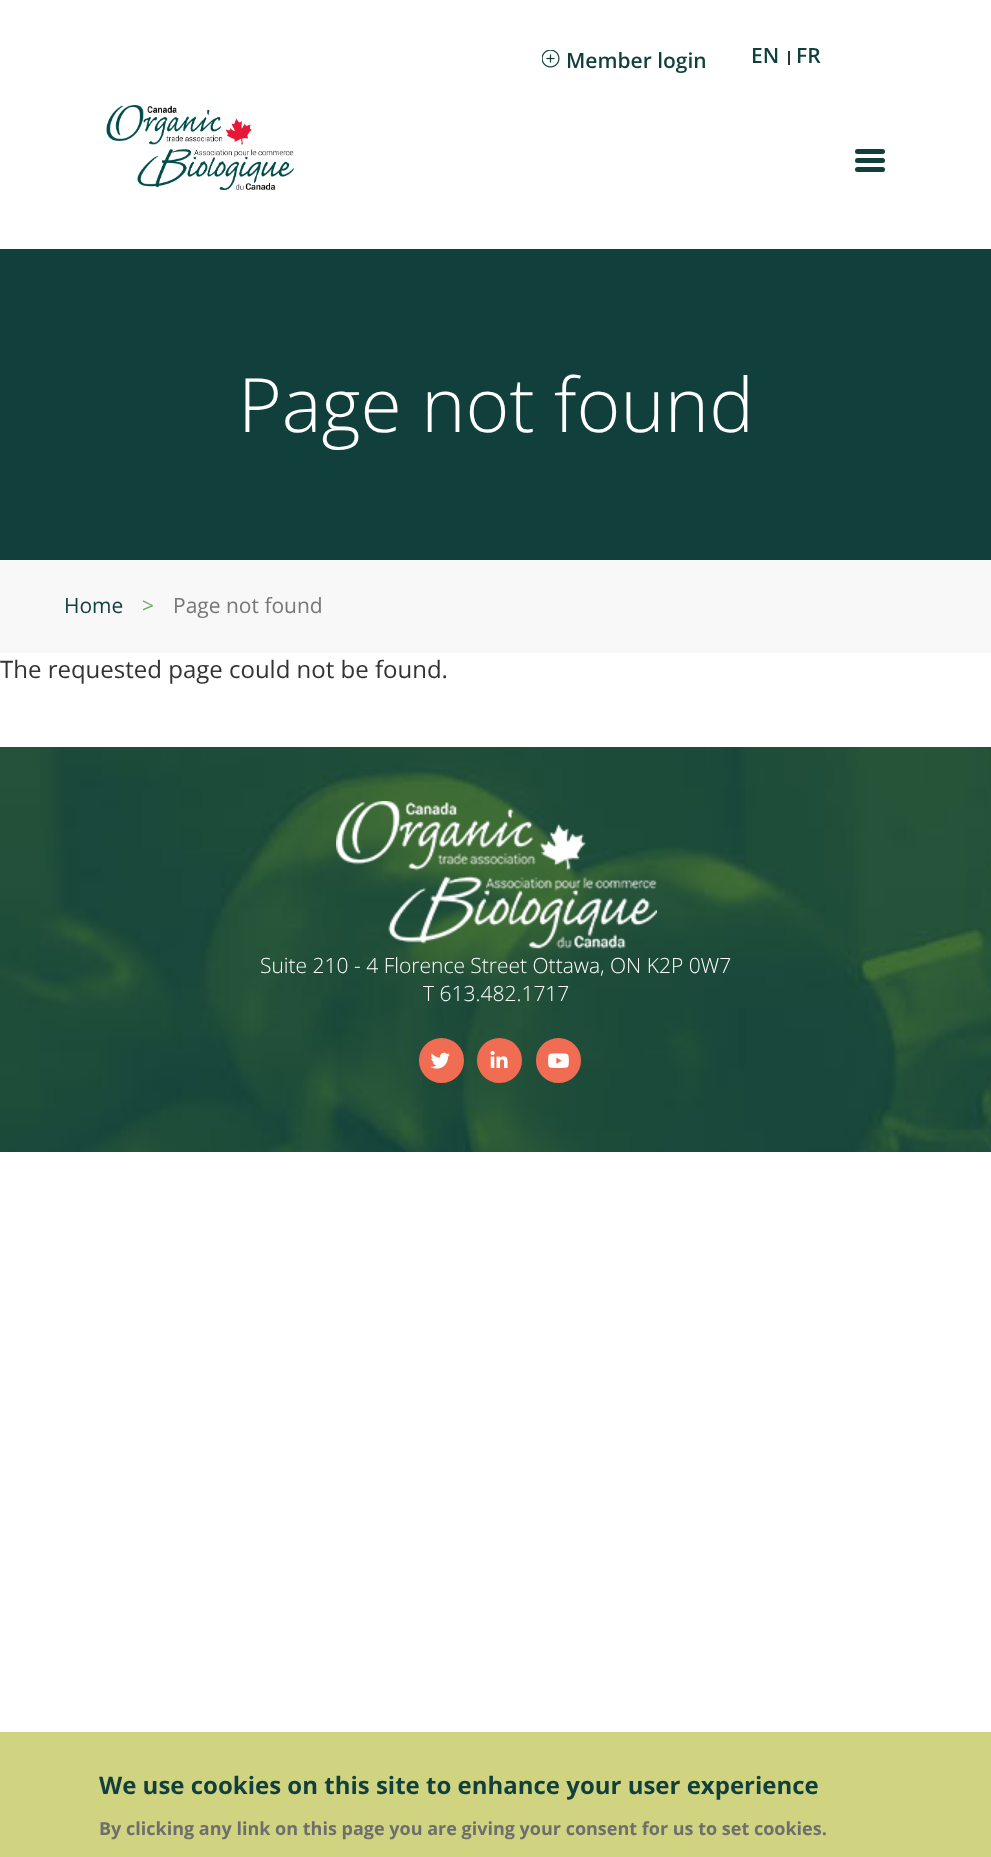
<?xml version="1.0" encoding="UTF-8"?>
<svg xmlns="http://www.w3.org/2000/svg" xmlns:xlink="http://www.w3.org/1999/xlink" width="991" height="1857">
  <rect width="100%" height="100%" fill="#ffffff" />
  <image x="542" y="50" width="18" height="18" xlink:href="image1.png" />
  <rect x="788" y="51" width="2" height="14" fill="#333333" />
  <image x="106" y="105" width="188" height="86" xlink:href="image2.png" />
  <rect x="855" y="149" width="30" height="5" rx="2.5" fill="#113f3c" />
  <rect x="855" y="158" width="30" height="5" rx="2.5" fill="#113f3c" />
  <rect x="855" y="167" width="30" height="5" rx="2.5" fill="#113f3c" />
  <rect y="249" width="991" height="311" fill="#113f3c" />
  <rect y="560" width="991" height="93" fill="#f8f8f8" />
  <image x="0" y="747" width="991" height="405" xlink:href="image3.png" />
  <image x="336" y="801" width="321" height="148" xlink:href="image4.png" />
  <circle cx="441.5" cy="1060.5" r="21.5" fill="#f06c53" stroke="#f06c53" stroke-width="2" />
  <image x="430" y="1052" width="20" height="17" xlink:href="image5.png" />
  <circle cx="499.5" cy="1060.5" r="21.5" fill="#f06c53" stroke="#f06c53" stroke-width="2" />
  <image x="490" y="1051" width="18" height="17" xlink:href="image6.png" />
  <circle cx="558.5" cy="1060.5" r="21.5" fill="#f06c53" stroke="#f06c53" stroke-width="2" />
  <image x="548" y="1053" width="21" height="15" xlink:href="image7.png" />
  <rect y="1732" width="991" height="125" fill="#d0d481" />
  <text x="566" y="68" style="font-family: Open Sans; font-size: 21px; font-weight: 600; fill: #113f3c">Member login</text>
  <text x="751" y="63" style="font-family: Open Sans; font-size: 21px; font-weight: 600; fill: #113f3c">EN</text>
  <text x="796" y="63" style="font-family: Open Sans; font-size: 21px; font-weight: 600; fill: #113f3c">FR</text>
  <text x="238" y="432" style="font-family: Open Sans; font-size: 75px; font-weight: 300; fill: #ffffff">Page not found</text>
  <text x="64" y="613" style="font-family: Open Sans; font-size: 21px; fill: #113f3c">Home</text>
  <text x="142" y="613" style="font-family: Open Sans; font-size: 21px; fill: #72a46f">&gt;</text>
  <text x="173" y="613" style="font-family: Open Sans; font-size: 21px; fill: #777777">Page not found</text>
  <text x="0" y="678" style="font-family: Open Sans; font-size: 24px; fill: #333333">The requested page could not be found.</text>
  <text x="260" y="973" style="font-family: Open Sans; font-size: 21px; font-weight: 300; fill: #ffffff">Suite 210 - 4 Florence Street Ottawa, ON K2P 0W7</text>
  <text x="423" y="1001" style="font-family: Open Sans; font-size: 21px; font-weight: 300; fill: #ffffff">T 613.482.1717</text>
  <text x="99" y="1794" style="font-family: Open Sans; font-size: 24px; font-weight: bold; fill: #113f3c">We use cookies on this site to enhance your user experience</text>
  <text x="99" y="1835" style="font-family: Open Sans; font-size: 18px; font-weight: bold; fill: #6e6e6e">By clicking any link on this page you are giving your consent for us to set cookies.</text>
</svg>
